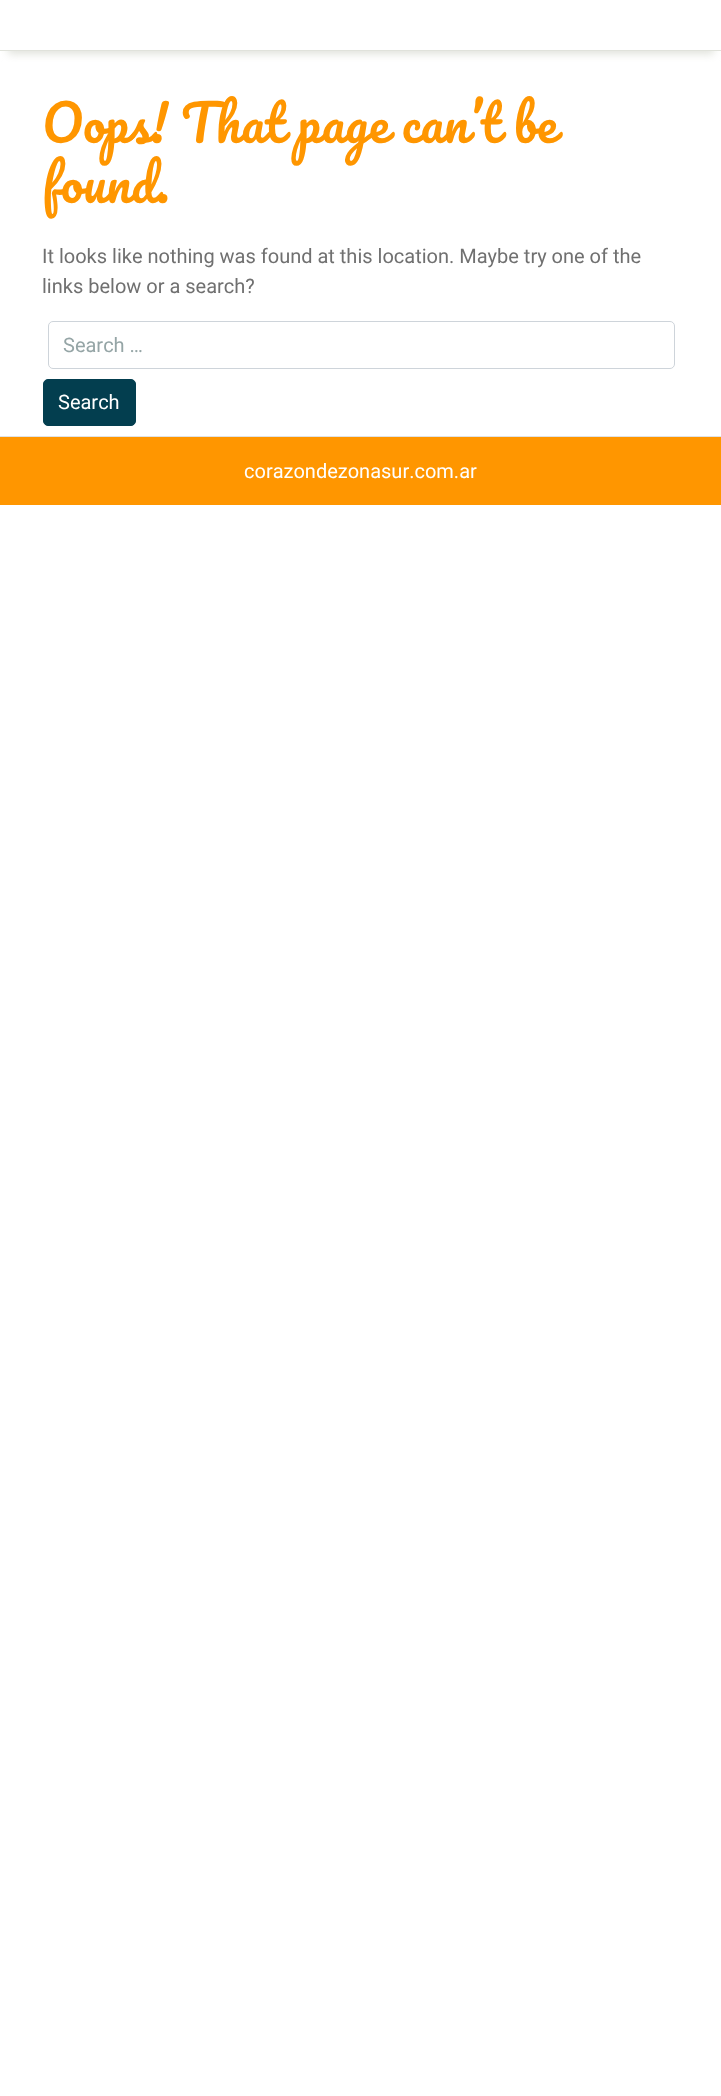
<?xml version="1.0" encoding="UTF-8"?>
<svg xmlns="http://www.w3.org/2000/svg" xmlns:xlink="http://www.w3.org/1999/xlink" width="721" height="2096">
  <style>*{font-kerning:none!important;font-variant-ligatures:none!important}</style>
  <defs>
    <clipPath id="clip1"><rect x="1" y="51" width="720" height="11" /></clipPath>
  </defs>
  <rect width="100%" height="100%" fill="#ffffff" />
  <g clip-path="url(#clip1)">
    <rect x="8" y="18" width="706" height="36" fill="#e0e2db" filter="blur(4px)" />
  </g>
  <rect y="50" width="721" height="1" fill="#e0e2db" />
  <rect x="48.5" y="321.5" width="626" height="47" rx="4.5" fill="none" stroke="#ced4da" />
  <rect x="43.5" y="379.5" width="92" height="46" rx="4.5" fill="#033e4f" stroke="#033e4f" />
  <rect y="437" width="721" height="68" fill="#ff9600" />
  <rect y="436" width="721" height="1" fill="#dee2e6" />
  <text x="42" y="143" style="font-family: Pacifico; font-size: 50px; fill: #ff9600">Oops! That page can’t be</text>
  <text x="42" y="203" style="font-family: Pacifico; font-size: 50px; fill: #ff9600">found.</text>
  <text x="42" y="263" style="font-family: Roboto; font-size: 20px; fill: #707070">It looks like nothing was found at this location. Maybe try one of the</text>
  <text x="42" y="293" style="font-family: Roboto; font-size: 20px; fill: #707070">links below or a search?</text>
  <text x="63" y="352" style="font-family: Roboto; font-size: 20px; fill: #95a5a6">Search …</text>
  <text x="58" y="409" style="font-family: Roboto; font-size: 20px; fill: #ffffff">Search</text>
  <text x="244" y="478" style="font-family: Roboto; font-size: 20px; fill: #ffffff">corazondezonasur.com.ar</text>
</svg>
